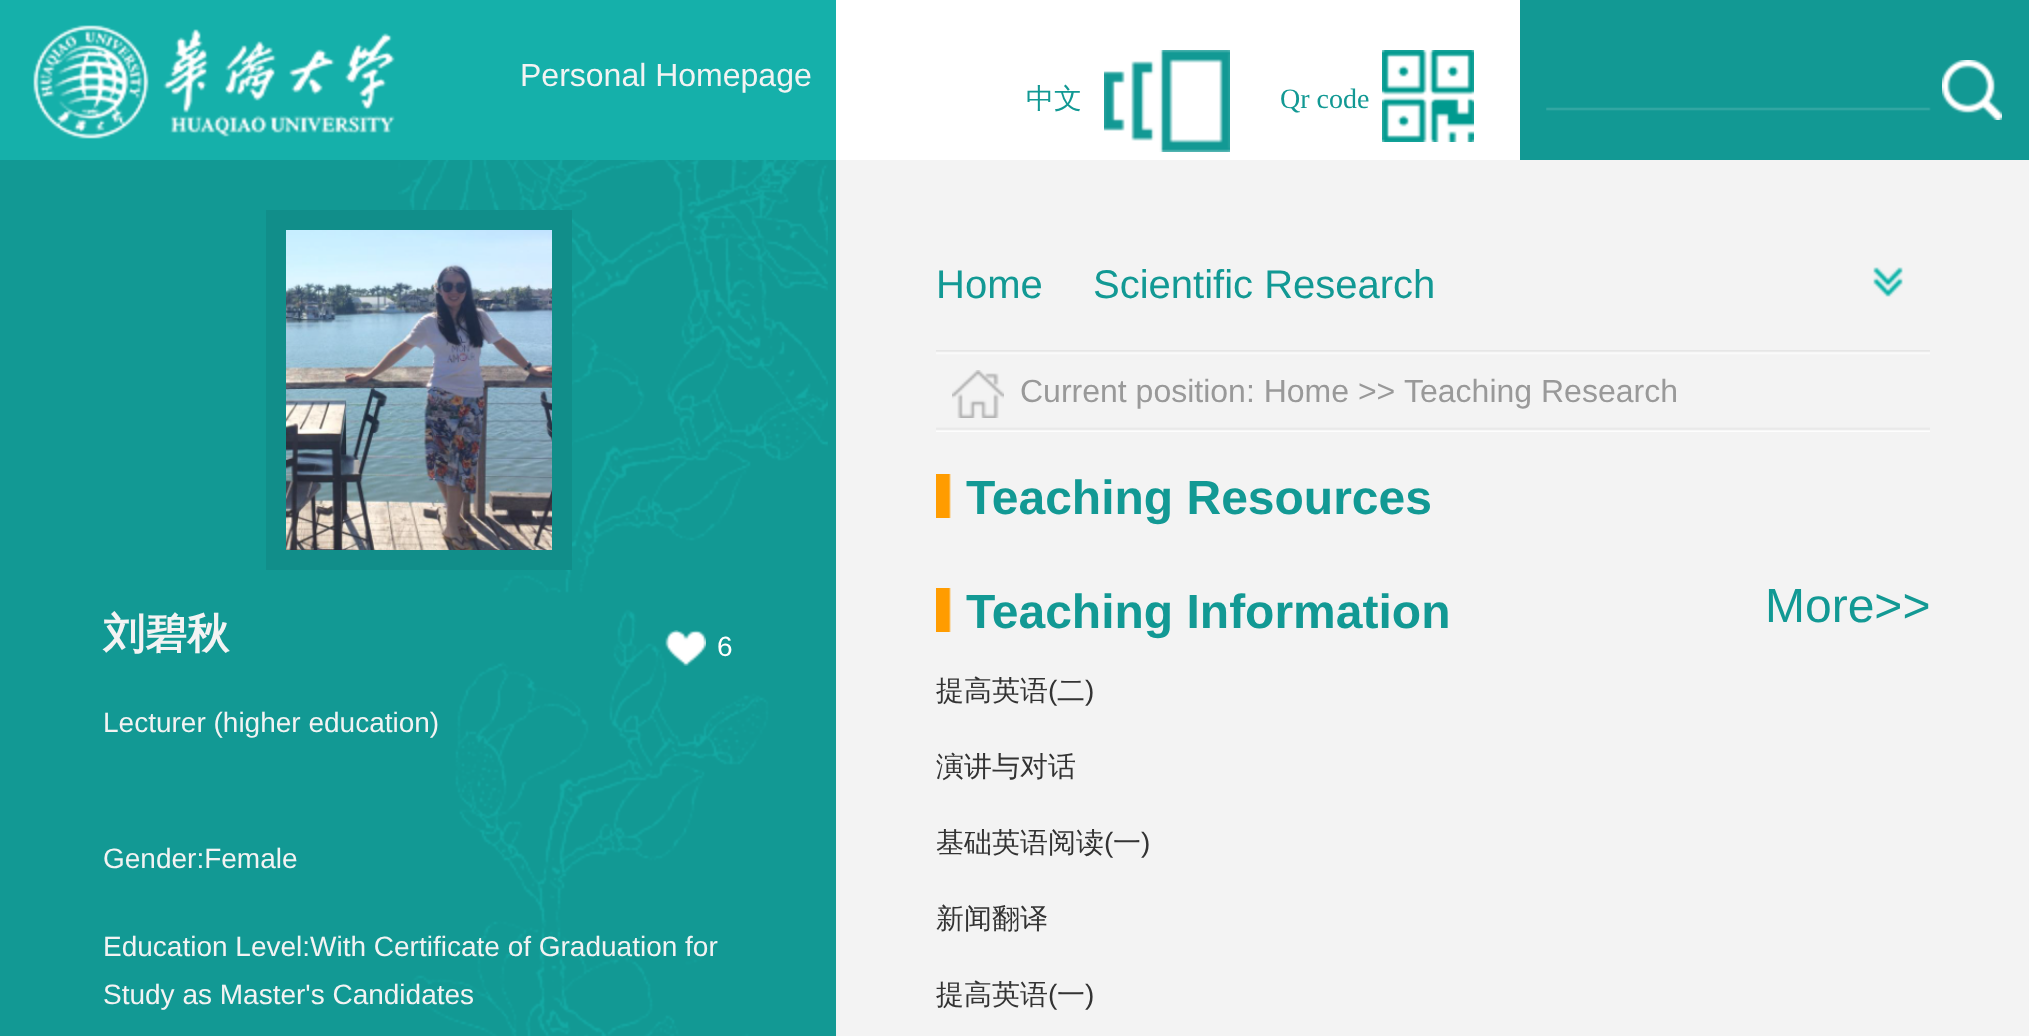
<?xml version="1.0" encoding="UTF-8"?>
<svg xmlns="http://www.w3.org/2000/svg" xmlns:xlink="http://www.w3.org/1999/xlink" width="2029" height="1036">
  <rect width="100%" height="100%" fill="#129994" />
  <rect x="836" width="684" height="160" fill="#ffffff" />
  <rect width="836" height="160" fill="#15b0aa" />
  <image x="33" y="25" width="362" height="114" xlink:href="image1.png" />
  <image x="1546" y="107" width="385" height="4" xlink:href="image2.png" />
  <image x="1942" y="60" width="60" height="60" xlink:href="image3.png" />
  <image x="1104" y="50" width="126" height="102" xlink:href="image4.png" />
  <image x="1382" y="50" width="92" height="92" xlink:href="image5.png" />
  <image x="398" y="160" width="430" height="876" xlink:href="image6.png" />
  <rect x="276" y="220" width="286" height="340" fill="none" stroke="#118e8a" stroke-width="20" />
  <image x="286" y="230" width="266" height="320" xlink:href="image7.png" />
  <image x="665" y="630" width="41" height="36" xlink:href="image8.png" />
  <rect x="836" y="160" width="1193" height="876" fill="#f3f3f3" />
  <image x="1873" y="267" width="30" height="30" xlink:href="image9.png" />
  <image x="936" y="350" width="994" height="82" xlink:href="image10.png" />
  <image x="952" y="370" width="52" height="48" xlink:href="image11.png" />
  <image x="936" y="474" width="15" height="44" xlink:href="image12.png" />
  <image x="936" y="588" width="15" height="44" xlink:href="image12.png" />
  <text x="520" y="86" style="font-family: Liberation Sans; font-size: 32px; fill: #f3f3f3">Personal Homepage</text>
  <text x="1026" y="108" style="font-family: WenQuanYi Zen Hei; font-size: 28px; font-weight: 500; fill: #129994">中文</text>
  <text x="1280" y="108" style="font-family: Liberation Serif; font-size: 28px; fill: #129994">Qr code</text>
  <text x="103" y="648" style="font-family: WenQuanYi Zen Hei; font-size: 42px; font-weight: bold; fill: #f3f3f3">刘碧秋</text>
  <text x="717" y="656" style="font-family: Liberation Sans; font-size: 28px; fill: #ffffff">6</text>
  <text x="103" y="732" style="font-family: Liberation Sans; font-size: 28px; fill: #f3f3f3">Lecturer (higher education)</text>
  <text x="103" y="868" style="font-family: Liberation Sans; font-size: 28px; fill: #f3f3f3">Gender:Female</text>
  <text x="103" y="956" style="font-family: Liberation Sans; font-size: 28px; fill: #f3f3f3">Education Level:With Certificate of Graduation for</text>
  <text x="103" y="1004" style="font-family: Liberation Sans; font-size: 28px; fill: #f3f3f3">Study as Master's Candidates</text>
  <text x="936" y="298" style="font-family: Liberation Sans; font-size: 40px; fill: #129994">Home</text>
  <text x="1093" y="298" style="font-family: Liberation Sans; font-size: 40px; fill: #129994">Scientific Research</text>
  <text x="1020" y="402" style="font-family: Liberation Sans; font-size: 32px; fill: #999999">Current position: Home &gt;&gt;</text>
  <text x="1404" y="402" style="font-family: Liberation Sans; font-size: 32px; fill: #999999">Teaching Research</text>
  <text x="966" y="514" style="font-family: Liberation Sans; font-size: 48px; font-weight: bold; fill: #129994">Teaching Resources</text>
  <text x="966" y="628" style="font-family: Liberation Sans; font-size: 48px; font-weight: bold; fill: #129994">Teaching Information</text>
  <text x="1765" y="622" style="font-family: Liberation Sans; font-size: 48px; fill: #129994">More&gt;&gt;</text>
  <text x="936" y="700" style="font-family: WenQuanYi Zen Hei; font-size: 28px; font-weight: 500; fill: #333333">提高英语</text>
  <text x="1048" y="700" style="font-family: Liberation Sans; font-size: 28px; fill: #333333">(</text>
  <text x="1057" y="700" style="font-family: WenQuanYi Zen Hei; font-size: 28px; font-weight: 500; fill: #333333">二</text>
  <text x="1085" y="700" style="font-family: Liberation Sans; font-size: 28px; fill: #333333">)</text>
  <text x="936" y="776" style="font-family: WenQuanYi Zen Hei; font-size: 28px; font-weight: 500; fill: #333333">演讲与对话</text>
  <text x="936" y="852" style="font-family: WenQuanYi Zen Hei; font-size: 28px; font-weight: 500; fill: #333333">基础英语阅读</text>
  <text x="1104" y="852" style="font-family: Liberation Sans; font-size: 28px; fill: #333333">(</text>
  <text x="1113" y="852" style="font-family: WenQuanYi Zen Hei; font-size: 28px; font-weight: 500; fill: #333333">一</text>
  <text x="1141" y="852" style="font-family: Liberation Sans; font-size: 28px; fill: #333333">)</text>
  <text x="936" y="928" style="font-family: WenQuanYi Zen Hei; font-size: 28px; font-weight: 500; fill: #333333">新闻翻译</text>
  <text x="936" y="1004" style="font-family: WenQuanYi Zen Hei; font-size: 28px; font-weight: 500; fill: #333333">提高英语</text>
  <text x="1048" y="1004" style="font-family: Liberation Sans; font-size: 28px; fill: #333333">(</text>
  <text x="1057" y="1004" style="font-family: WenQuanYi Zen Hei; font-size: 28px; font-weight: 500; fill: #333333">一</text>
  <text x="1085" y="1004" style="font-family: Liberation Sans; font-size: 28px; fill: #333333">)</text>
</svg>
